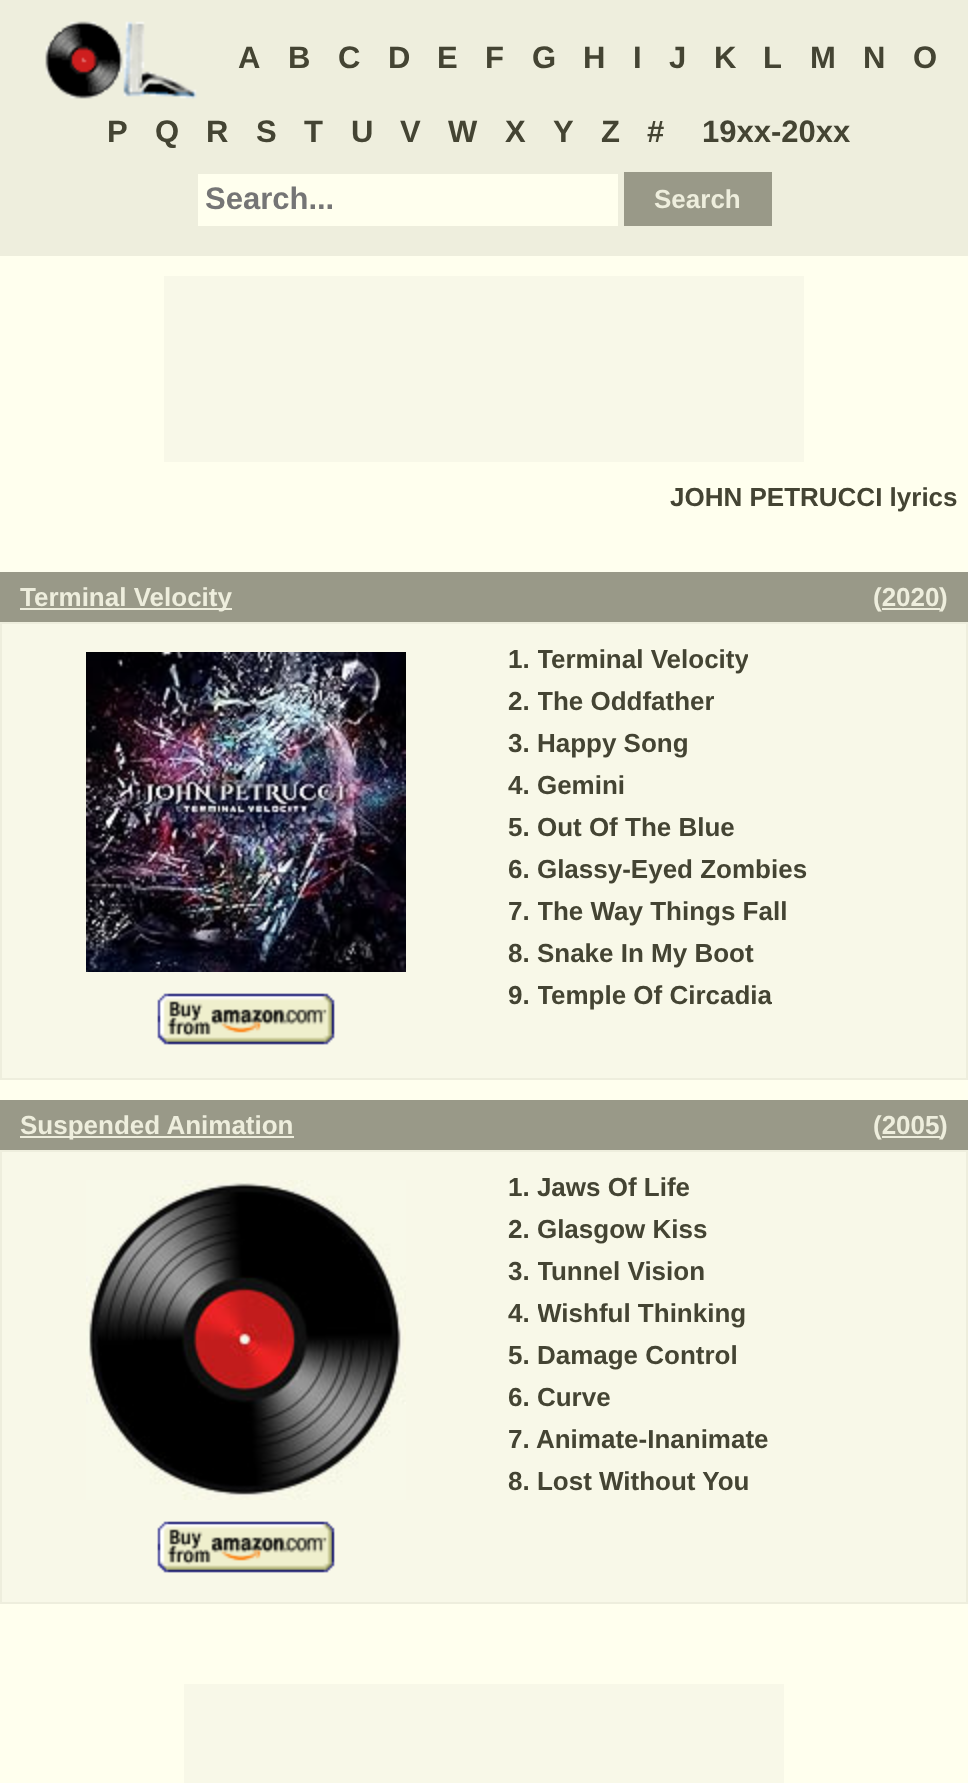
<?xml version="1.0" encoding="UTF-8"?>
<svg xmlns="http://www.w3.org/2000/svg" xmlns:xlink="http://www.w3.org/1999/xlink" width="968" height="1783">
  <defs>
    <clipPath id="clip1"><rect x="538" y="644" width="210" height="30" /></clipPath>
    <clipPath id="clip2"><rect x="538" y="686" width="176" height="30" /></clipPath>
    <clipPath id="clip3"><rect x="538" y="896" width="250" height="30" /></clipPath>
    <clipPath id="clip4"><rect x="538" y="980" width="234" height="30" /></clipPath>
    <clipPath id="clip5"><rect x="538" y="1256" width="168" height="30" /></clipPath>
    <clipPath id="clip6"><rect x="538" y="1298" width="208" height="30" /></clipPath>
  </defs>
  <rect width="100%" height="100%" fill="#ffffee" />
  <rect width="968" height="256" fill="#eeeedd" />
  <image x="45" y="21" width="152" height="78" xlink:href="image1.png" />
  <rect x="198" y="174" width="420" height="52" fill="#ffffee" />
  <rect x="624" y="172" width="148" height="54" fill="#999988" />
  <rect x="164" y="276" width="640" height="186" fill="#f8f8e8" />
  <rect y="572" width="968" height="50" fill="#999988" />
  <rect x="20" y="608" width="212" height="2" fill="#eeeedd" />
  <rect x="882" y="608" width="58" height="2" fill="#eeeedd" />
  <rect x="1" y="623" width="966" height="456" fill="#f8f8e8" stroke="#eeeedd" stroke-width="2" />
  <image x="86" y="652" width="320" height="320" xlink:href="image2.png" />
  <image x="157" y="993" width="178" height="52" xlink:href="image3.png" />
  <rect y="1100" width="968" height="50" fill="#999988" />
  <rect x="20" y="1136" width="274" height="2" fill="#eeeedd" />
  <rect x="882" y="1136" width="58" height="2" fill="#eeeedd" />
  <rect x="1" y="1151" width="966" height="452" fill="#f8f8e8" stroke="#eeeedd" stroke-width="2" />
  <image x="86" y="1180" width="320" height="320" xlink:href="image4.png" />
  <image x="157" y="1521" width="178" height="52" xlink:href="image3.png" />
  <rect x="184" y="1684" width="600" height="99" fill="#f8f8e8" />
  <text x="238" y="68" style="font-family: Liberation Sans; font-size: 31px; font-weight: bold; fill: #444433">A</text>
  <text x="288" y="68" style="font-family: Liberation Sans; font-size: 31px; font-weight: bold; fill: #444433">B</text>
  <text x="338" y="68" style="font-family: Liberation Sans; font-size: 31px; font-weight: bold; fill: #444433">C</text>
  <text x="388" y="68" style="font-family: Liberation Sans; font-size: 31px; font-weight: bold; fill: #444433">D</text>
  <text x="437" y="68" style="font-family: Liberation Sans; font-size: 31px; font-weight: bold; fill: #444433">E</text>
  <text x="485" y="68" style="font-family: Liberation Sans; font-size: 31px; font-weight: bold; fill: #444433">F</text>
  <text x="532" y="68" style="font-family: Liberation Sans; font-size: 31px; font-weight: bold; fill: #444433">G</text>
  <text x="583" y="68" style="font-family: Liberation Sans; font-size: 31px; font-weight: bold; fill: #444433">H</text>
  <text x="633" y="68" style="font-family: Liberation Sans; font-size: 31px; font-weight: bold; fill: #444433">I</text>
  <text x="669" y="68" style="font-family: Liberation Sans; font-size: 31px; font-weight: bold; fill: #444433">J</text>
  <text x="714" y="68" style="font-family: Liberation Sans; font-size: 31px; font-weight: bold; fill: #444433">K</text>
  <text x="763" y="68" style="font-family: Liberation Sans; font-size: 31px; font-weight: bold; fill: #444433">L</text>
  <text x="810" y="68" style="font-family: Liberation Sans; font-size: 31px; font-weight: bold; fill: #444433">M</text>
  <text x="863" y="68" style="font-family: Liberation Sans; font-size: 31px; font-weight: bold; fill: #444433">N</text>
  <text x="913" y="68" style="font-family: Liberation Sans; font-size: 31px; font-weight: bold; fill: #444433">O</text>
  <text x="107" y="142" style="font-family: Liberation Sans; font-size: 31px; font-weight: bold; fill: #444433">P</text>
  <text x="155" y="142" style="font-family: Liberation Sans; font-size: 31px; font-weight: bold; fill: #444433">Q</text>
  <text x="206" y="142" style="font-family: Liberation Sans; font-size: 31px; font-weight: bold; fill: #444433">R</text>
  <text x="256" y="142" style="font-family: Liberation Sans; font-size: 31px; font-weight: bold; fill: #444433">S</text>
  <text x="304" y="142" style="font-family: Liberation Sans; font-size: 31px; font-weight: bold; fill: #444433">T</text>
  <text x="351" y="142" style="font-family: Liberation Sans; font-size: 31px; font-weight: bold; fill: #444433">U</text>
  <text x="400" y="142" style="font-family: Liberation Sans; font-size: 31px; font-weight: bold; fill: #444433">V</text>
  <text x="448" y="142" style="font-family: Liberation Sans; font-size: 31px; font-weight: bold; fill: #444433">W</text>
  <text x="505" y="142" style="font-family: Liberation Sans; font-size: 31px; font-weight: bold; fill: #444433">X</text>
  <text x="553" y="142" style="font-family: Liberation Sans; font-size: 31px; font-weight: bold; fill: #444433">Y</text>
  <text x="601" y="142" style="font-family: Liberation Sans; font-size: 31px; font-weight: bold; fill: #444433">Z</text>
  <text x="647" y="142" style="font-family: Liberation Sans; font-size: 31px; font-weight: bold; fill: #444433">#</text>
  <text x="702" y="142" style="font-family: Liberation Sans; font-size: 31px; font-weight: bold; fill: #444433">19xx-20xx</text>
  <text x="205" y="209" style="font-family: Liberation Sans; font-size: 31px; font-weight: bold; fill: #757575">Search...</text>
  <text x="654" y="208" style="font-family: Liberation Sans; font-size: 26px; font-weight: bold; fill: #eeeedd">Search</text>
  <text x="670" y="506" style="font-family: Liberation Sans; font-size: 26px; font-weight: bold; fill: #444433">JOHN PETRUCCI lyrics</text>
  <text x="20" y="606" style="font-family: Liberation Sans; font-size: 26px; font-weight: bold; fill: #eeeedd">Terminal Velocity</text>
  <text x="873" y="606" style="font-family: Liberation Sans; font-size: 26px; font-weight: bold; fill: #eeeedd">(2020</text>
  <text x="939" y="606" style="font-family: Liberation Sans; font-size: 26px; font-weight: bold; fill: #eeeedd">)</text>
  <text x="508" y="668" style="font-family: Liberation Sans; font-size: 26px; font-weight: bold; fill: #444433">1.</text>
  <g clip-path="url(#clip1)">
    <text x="537" y="668" style="font-family: Liberation Sans; font-size: 26px; font-weight: bold; fill: #444433">Terminal Velocity</text>
  </g>
  <text x="508" y="710" style="font-family: Liberation Sans; font-size: 26px; font-weight: bold; fill: #444433">2.</text>
  <g clip-path="url(#clip2)">
    <text x="537" y="710" style="font-family: Liberation Sans; font-size: 26px; font-weight: bold; fill: #444433">The Oddfather</text>
  </g>
  <text x="508" y="752" style="font-family: Liberation Sans; font-size: 26px; font-weight: bold; fill: #444433">3. Happy Song</text>
  <text x="508" y="794" style="font-family: Liberation Sans; font-size: 26px; font-weight: bold; fill: #444433">4. Gemini</text>
  <text x="508" y="836" style="font-family: Liberation Sans; font-size: 26px; font-weight: bold; fill: #444433">5. Out Of The Blue</text>
  <text x="508" y="878" style="font-family: Liberation Sans; font-size: 26px; font-weight: bold; fill: #444433">6. Glassy-Eyed Zombies</text>
  <text x="508" y="920" style="font-family: Liberation Sans; font-size: 26px; font-weight: bold; fill: #444433">7.</text>
  <g clip-path="url(#clip3)">
    <text x="537" y="920" style="font-family: Liberation Sans; font-size: 26px; font-weight: bold; fill: #444433">The Way Things Fall</text>
  </g>
  <text x="508" y="962" style="font-family: Liberation Sans; font-size: 26px; font-weight: bold; fill: #444433">8. Snake In My Boot</text>
  <text x="508" y="1004" style="font-family: Liberation Sans; font-size: 26px; font-weight: bold; fill: #444433">9.</text>
  <g clip-path="url(#clip4)">
    <text x="537" y="1004" style="font-family: Liberation Sans; font-size: 26px; font-weight: bold; fill: #444433">Temple Of Circadia</text>
  </g>
  <text x="20" y="1134" style="font-family: Liberation Sans; font-size: 26px; font-weight: bold; fill: #eeeedd">Suspended Animation</text>
  <text x="873" y="1134" style="font-family: Liberation Sans; font-size: 26px; font-weight: bold; fill: #eeeedd">(2005</text>
  <text x="939" y="1134" style="font-family: Liberation Sans; font-size: 26px; font-weight: bold; fill: #eeeedd">)</text>
  <text x="508" y="1196" style="font-family: Liberation Sans; font-size: 26px; font-weight: bold; fill: #444433">1. Jaws Of Life</text>
  <text x="508" y="1238" style="font-family: Liberation Sans; font-size: 26px; font-weight: bold; fill: #444433">2. Glasgow Kiss</text>
  <text x="508" y="1280" style="font-family: Liberation Sans; font-size: 26px; font-weight: bold; fill: #444433">3.</text>
  <g clip-path="url(#clip5)">
    <text x="537" y="1280" style="font-family: Liberation Sans; font-size: 26px; font-weight: bold; fill: #444433">Tunnel Vision</text>
  </g>
  <text x="508" y="1322" style="font-family: Liberation Sans; font-size: 26px; font-weight: bold; fill: #444433">4.</text>
  <g clip-path="url(#clip6)">
    <text x="537" y="1322" style="font-family: Liberation Sans; font-size: 26px; font-weight: bold; fill: #444433">Wishful Thinking</text>
  </g>
  <text x="508" y="1364" style="font-family: Liberation Sans; font-size: 26px; font-weight: bold; fill: #444433">5. Damage Control</text>
  <text x="508" y="1406" style="font-family: Liberation Sans; font-size: 26px; font-weight: bold; fill: #444433">6. Curve</text>
  <text x="508" y="1448" style="font-family: Liberation Sans; font-size: 26px; font-weight: bold; fill: #444433">7. Animate-Inanimate</text>
  <text x="508" y="1490" style="font-family: Liberation Sans; font-size: 26px; font-weight: bold; fill: #444433">8. Lost Without You</text>
</svg>
